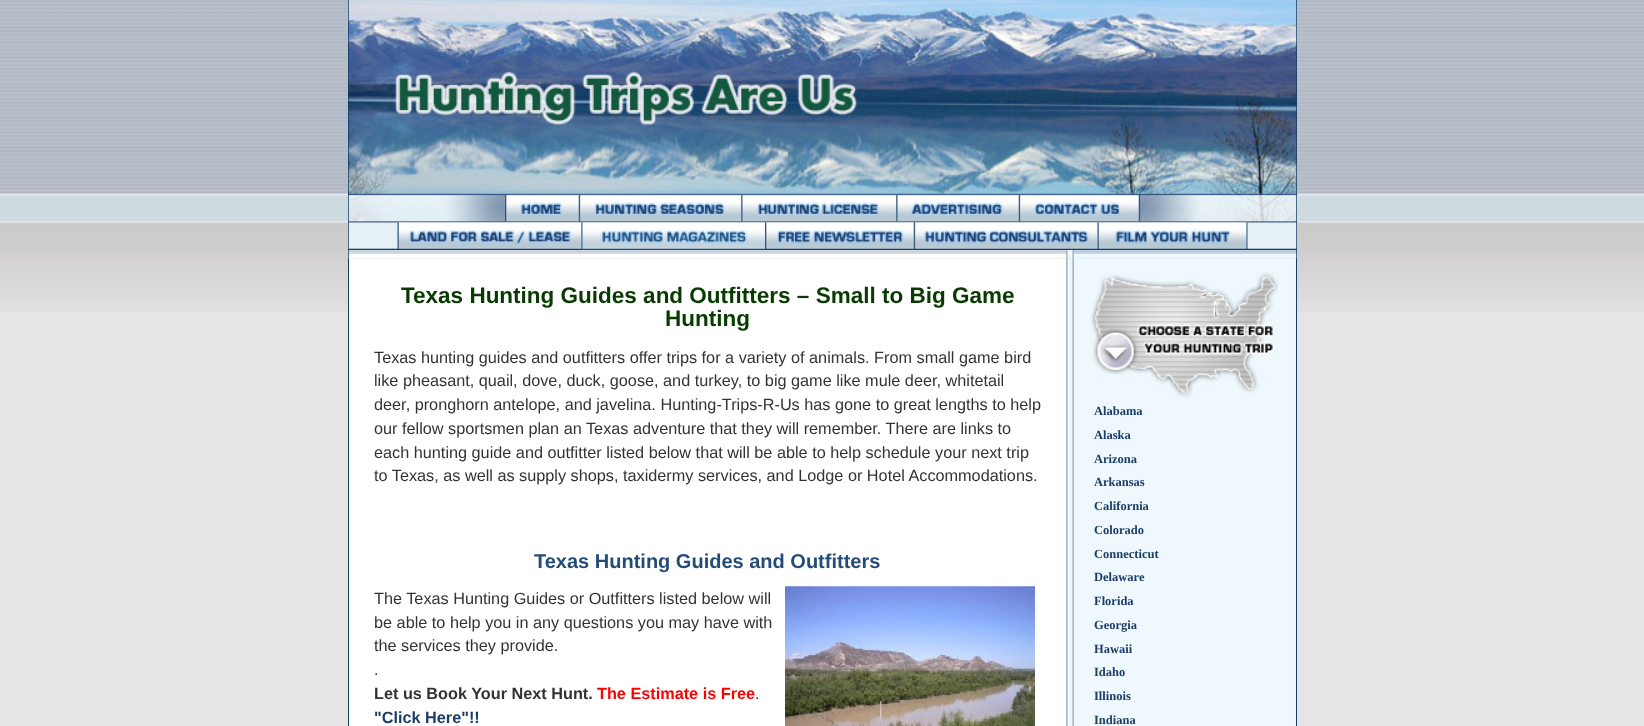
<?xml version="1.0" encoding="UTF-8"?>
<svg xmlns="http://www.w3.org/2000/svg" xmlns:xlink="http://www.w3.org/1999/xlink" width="1644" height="726">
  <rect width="100%" height="100%" fill="#e5e5e5" />
  <image x="0" y="0" width="1644" height="312" xlink:href="image1.png" />
  <rect x="1296" width="1" height="726" fill="#163d64" />
  <rect x="348" width="1" height="726" fill="#163d64" />
  <image x="348" y="0" width="949" height="194" xlink:href="image2.png" />
  <image x="348" y="222" width="949" height="28" xlink:href="image10.png" />
  <image x="348" y="193" width="157" height="30" xlink:href="image3.png" />
  <image x="505" y="193" width="74" height="30" xlink:href="image4.png" />
  <image x="578" y="193" width="164" height="30" xlink:href="image5.png" />
  <image x="741" y="193" width="156" height="30" xlink:href="image6.png" />
  <image x="896" y="193" width="123" height="30" xlink:href="image7.png" />
  <image x="1018" y="193" width="121" height="30" xlink:href="image8.png" />
  <image x="1246" y="222" width="2" height="27" xlink:href="image16.png" />
  <image x="1138" y="193" width="159" height="30" xlink:href="image9.png" />
  <image x="397" y="222" width="185" height="27" xlink:href="image11.png" />
  <image x="581" y="222" width="184" height="28" xlink:href="image12.png" />
  <image x="765" y="222" width="149" height="27" xlink:href="image13.png" />
  <image x="913" y="222" width="185" height="27" xlink:href="image14.png" />
  <image x="1097" y="222" width="150" height="27" xlink:href="image15.png" />
  <image x="1066" y="258" width="8" height="468" xlink:href="image19.png" />
  <image x="348" y="250" width="949" height="9" xlink:href="image17.png" />
  <rect x="349" y="259" width="717" height="467" fill="#ffffff" />
  <image x="785" y="586" width="250" height="140" xlink:href="image18.png" />
  <rect x="1074" y="259" width="222" height="467" fill="#eff8fd" />
  <image x="1091" y="271" width="188" height="128" xlink:href="image20.png" />
  <text x="401" y="303" style="font-family: Liberation Sans; font-size: 22.5px; font-weight: bold; fill: #083b00">Texas Hunting Guides and Outfitters – Small to Big Game</text>
  <text x="665" y="326" style="font-family: Liberation Sans; font-size: 22.5px; font-weight: bold; fill: #083b00">Hunting</text>
  <text x="374" y="363" style="font-family: Liberation Sans; font-size: 16.25px; fill: #333333">Texas hunting guides and outfitters offer trips for a variety of animals. From small game bird</text>
  <text x="374" y="386" style="font-family: Liberation Sans; font-size: 16.25px; fill: #333333">like pheasant, quail, dove, duck, goose, and turkey, to big game like mule deer, whitetail</text>
  <text x="374" y="410" style="font-family: Liberation Sans; font-size: 16.25px; fill: #333333">deer, pronghorn antelope, and javelina. Hunting-Trips-R-Us has gone to great lengths to help</text>
  <text x="374" y="434" style="font-family: Liberation Sans; font-size: 16.25px; fill: #333333">our fellow sportsmen plan an Texas adventure that they will remember. There are links to</text>
  <text x="374" y="458" style="font-family: Liberation Sans; font-size: 16.25px; fill: #333333">each hunting guide and outfitter listed below that will be able to help schedule your next trip</text>
  <text x="374" y="481" style="font-family: Liberation Sans; font-size: 16.25px; fill: #333333">to Texas, as well as supply shops, taxidermy services, and Lodge or Hotel Accommodations.</text>
  <text x="534" y="568" style="font-family: Liberation Sans; font-size: 20px; font-weight: bold; fill: #234d78">Texas Hunting Guides and Outfitters</text>
  <text x="374" y="604" style="font-family: Liberation Sans; font-size: 16.25px; fill: #333333">The Texas Hunting Guides or Outfitters listed below will</text>
  <text x="374" y="628" style="font-family: Liberation Sans; font-size: 16.25px; fill: #333333">be able to help you in any questions you may have with</text>
  <text x="374" y="651" style="font-family: Liberation Sans; font-size: 16.25px; fill: #333333">the services they provide.</text>
  <text x="374" y="675" style="font-family: Liberation Sans; font-size: 16.25px; fill: #333333">.</text>
  <text x="374" y="699" style="font-family: Liberation Sans; font-size: 16.25px; font-weight: bold; fill: #333333">Let us Book Your Next Hunt.</text>
  <text x="597" y="699" style="font-family: Liberation Sans; font-size: 16.25px; font-weight: bold; fill: #ff0000">The Estimate is Free</text>
  <text x="755" y="699" style="font-family: Liberation Sans; font-size: 16.25px; fill: #333333">.</text>
  <text x="374" y="723" style="font-family: Liberation Sans; font-size: 16.25px; font-weight: bold; fill: #1c3d68">"Click Here"!!</text>
  <text x="1094" y="415" style="font-family: Liberation Serif; font-size: 12.5px; font-weight: bold; fill: #1c3d68">Alabama</text>
  <text x="1094" y="439" style="font-family: Liberation Serif; font-size: 12.5px; font-weight: bold; fill: #1c3d68">Alaska</text>
  <text x="1094" y="463" style="font-family: Liberation Serif; font-size: 12.5px; font-weight: bold; fill: #1c3d68">Arizona</text>
  <text x="1094" y="486" style="font-family: Liberation Serif; font-size: 12.5px; font-weight: bold; fill: #1c3d68">Arkansas</text>
  <text x="1094" y="510" style="font-family: Liberation Serif; font-size: 12.5px; font-weight: bold; fill: #1c3d68">California</text>
  <text x="1094" y="534" style="font-family: Liberation Serif; font-size: 12.5px; font-weight: bold; fill: #1c3d68">Colorado</text>
  <text x="1094" y="558" style="font-family: Liberation Serif; font-size: 12.5px; font-weight: bold; fill: #1c3d68">Connecticut</text>
  <text x="1094" y="581" style="font-family: Liberation Serif; font-size: 12.5px; font-weight: bold; fill: #1c3d68">Delaware</text>
  <text x="1094" y="605" style="font-family: Liberation Serif; font-size: 12.5px; font-weight: bold; fill: #1c3d68">Florida</text>
  <text x="1094" y="629" style="font-family: Liberation Serif; font-size: 12.5px; font-weight: bold; fill: #1c3d68">Georgia</text>
  <text x="1094" y="653" style="font-family: Liberation Serif; font-size: 12.5px; font-weight: bold; fill: #1c3d68">Hawaii</text>
  <text x="1094" y="676" style="font-family: Liberation Serif; font-size: 12.5px; font-weight: bold; fill: #1c3d68">Idaho</text>
  <text x="1094" y="700" style="font-family: Liberation Serif; font-size: 12.5px; font-weight: bold; fill: #1c3d68">Illinois</text>
  <text x="1094" y="724" style="font-family: Liberation Serif; font-size: 12.5px; font-weight: bold; fill: #1c3d68">Indiana</text>
</svg>
